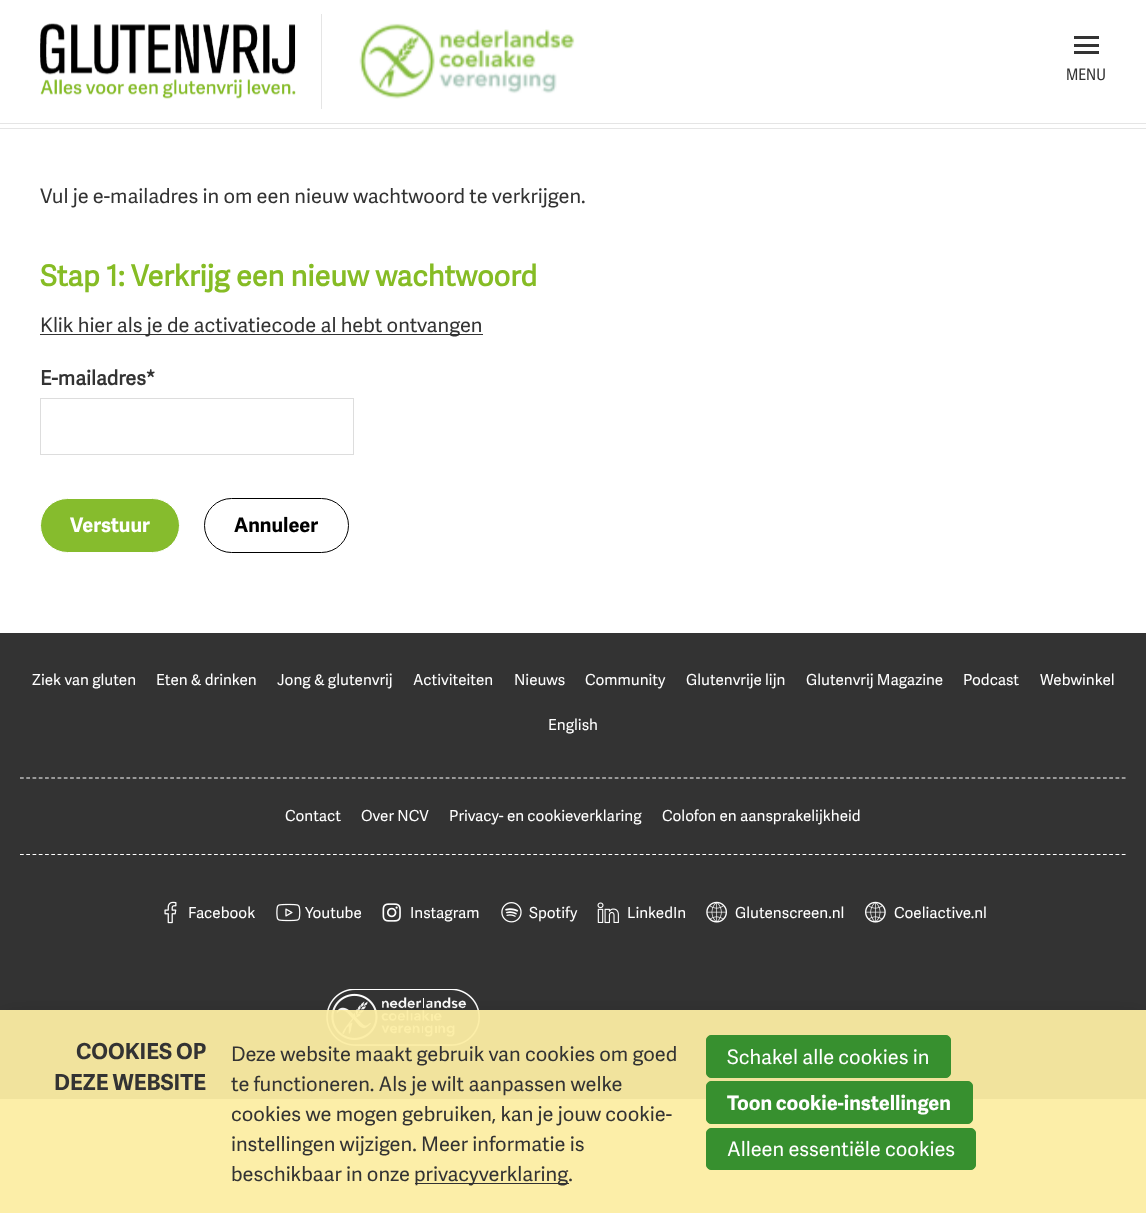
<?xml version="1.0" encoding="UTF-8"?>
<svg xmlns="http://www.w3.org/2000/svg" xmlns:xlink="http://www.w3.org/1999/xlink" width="1146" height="1213">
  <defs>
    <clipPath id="clip1"><rect x="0" y="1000" width="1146" height="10" /></clipPath>
  </defs>
  <rect width="100%" height="100%" fill="#ffffff" />
  <rect y="123" width="1146" height="1" fill="#e5e5e5" />
  <image x="40" y="23" width="256" height="76" xlink:href="image1.png" />
  <rect x="321" y="14" width="1" height="95" fill="#e5e5e5" />
  <image x="359" y="23" width="216" height="76" xlink:href="image2.png" />
  <rect x="1074" y="44" width="25" height="3" fill="#333333" />
  <rect x="1074" y="36" width="25" height="3" fill="#333333" />
  <rect x="1074" y="51" width="25" height="3" fill="#333333" />
  <rect y="128" width="1146" height="1" fill="#e5e5e5" />
  <rect x="40" y="334" width="443" height="1" fill="#333333" />
  <rect x="40.5" y="398.5" width="313" height="56" fill="none" stroke="#dddddd" />
  <rect x="40.5" y="498.5" width="139" height="54" rx="27" fill="#86bc2d" stroke="#ffffff" />
  <rect x="204.5" y="498.5" width="144" height="54" rx="27" fill="none" stroke="#000000" />
  <rect y="633" width="1146" height="466" fill="#333333" />
  <path d="M 20 778 h 1106" fill="none" stroke="#ffffff" stroke-width="1.2" stroke-dasharray="3.75 2.51" />
  <path d="M 20 854.5 h 1106" fill="none" stroke="#ffffff" stroke-width="1.2" stroke-dasharray="3.75 2.51" />
  <image x="164" y="901" width="13" height="23" xlink:href="image3.png" />
  <image x="276" y="903" width="25" height="19" xlink:href="image4.png" />
  <image x="382" y="903" width="19" height="19" xlink:href="image5.png" />
  <image x="501" y="902" width="21" height="21" xlink:href="image6.png" />
  <image x="597" y="902" width="22" height="22" xlink:href="image7.png" />
  <image x="706" y="901" width="21" height="22" xlink:href="image8.png" />
  <image x="865" y="901" width="21" height="22" xlink:href="image9.png" />
  <image x="326" y="989" width="154" height="57" xlink:href="image10.png" />
  <g clip-path="url(#clip1)">
    <rect y="1016" width="1146" height="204" fill="#000000" fill-opacity="0.2" filter="blur(12.5px)" />
  </g>
  <rect y="1010" width="1146" height="203" fill="#fceda3" fill-opacity="0.95" />
  <rect x="415" y="1183" width="154" height="1" fill="#333333" />
  <rect x="706.5" y="1035.5" width="244" height="42" rx="4.5" fill="#37902f" stroke="#37902f" />
  <rect x="706.5" y="1081.5" width="266" height="42" rx="4.5" fill="#37902f" stroke="#37902f" />
  <rect x="706.5" y="1128.5" width="269" height="41" rx="4.5" fill="#37902f" stroke="#37902f" />
  <text x="1066" y="80" style="font-family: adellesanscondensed; font-size: 16px; fill: #333333">MENU</text>
  <text x="40" y="203" style="font-family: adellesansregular; font-size: 20px; fill: #333333">Vul je e-mailadres in om een nieuw wachtwoord te verkrijgen.</text>
  <text x="40" y="286" style="font-family: adellesansregular; font-size: 28.9px; font-weight: bold; fill: #86bc25">Stap 1: Verkrijg een nieuw wachtwoord</text>
  <text x="40" y="332" style="font-family: adellesansregular; font-size: 20px; fill: #333333">Klik hier als je de activatiecode al hebt ontvangen</text>
  <text x="40" y="385" style="font-family: adellesansregular; font-size: 20px; font-weight: bold; fill: #333333">E-mailadres*</text>
  <text x="70" y="532" style="font-family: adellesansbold; font-size: 20px; font-weight: bold; fill: #ffffff">Verstuur</text>
  <text x="234" y="532" style="font-family: adellesansbold; font-size: 20px; font-weight: bold; fill: #000000">Annuleer</text>
  <text x="32" y="685" style="font-family: adellesansregular; font-size: 15.25px; fill: #ffffff">Ziek van gluten</text>
  <text x="156" y="685" style="font-family: adellesansregular; font-size: 15.25px; fill: #ffffff">Eten &amp; drinken</text>
  <text x="277" y="685" style="font-family: adellesansregular; font-size: 15.25px; fill: #ffffff">Jong &amp; glutenvrij</text>
  <text x="413" y="685" style="font-family: adellesansregular; font-size: 15.25px; fill: #ffffff">Activiteiten</text>
  <text x="514" y="685" style="font-family: adellesansregular; font-size: 15.25px; fill: #ffffff">Nieuws</text>
  <text x="585" y="685" style="font-family: adellesansregular; font-size: 15.25px; fill: #ffffff">Community</text>
  <text x="686" y="685" style="font-family: adellesansregular; font-size: 15.25px; fill: #ffffff">Glutenvrije lijn</text>
  <text x="806" y="685" style="font-family: adellesansregular; font-size: 15.25px; fill: #ffffff">Glutenvrij Magazine</text>
  <text x="963" y="685" style="font-family: adellesansregular; font-size: 15.25px; fill: #ffffff">Podcast</text>
  <text x="1040" y="685" style="font-family: adellesansregular; font-size: 15.25px; fill: #ffffff">Webwinkel</text>
  <text x="548" y="730" style="font-family: adellesansregular; font-size: 15.25px; fill: #ffffff">English</text>
  <text x="285" y="821" style="font-family: adellesansregular; font-size: 15.25px; fill: #ffffff">Contact</text>
  <text x="361" y="821" style="font-family: adellesansregular; font-size: 15.25px; fill: #ffffff">Over NCV</text>
  <text x="449" y="821" style="font-family: adellesansregular; font-size: 15.25px; fill: #ffffff">Privacy- en cookieverklaring</text>
  <text x="662" y="821" style="font-family: adellesansregular; font-size: 15.25px; fill: #ffffff">Colofon en aansprakelijkheid</text>
  <text x="188" y="918" style="font-family: adellesansregular; font-size: 15.25px; fill: #ffffff">Facebook</text>
  <text x="305" y="918" style="font-family: adellesansregular; font-size: 15.25px; fill: #ffffff">Youtube</text>
  <text x="410" y="918" style="font-family: adellesansregular; font-size: 15.25px; fill: #ffffff">Instagram</text>
  <text x="529" y="918" style="font-family: adellesansregular; font-size: 15.25px; fill: #ffffff">Spotify</text>
  <text x="627" y="918" style="font-family: adellesansregular; font-size: 15.25px; fill: #ffffff">LinkedIn</text>
  <text x="735" y="918" style="font-family: adellesansregular; font-size: 15.25px; fill: #ffffff">Glutenscreen.nl</text>
  <text x="894" y="918" style="font-family: adellesansregular; font-size: 15.25px; fill: #ffffff">Coeliactive.nl</text>
  <text x="76" y="1059" style="font-family: adellesansbold; font-size: 22px; font-weight: bold; fill: #333333">COOKIES OP</text>
  <text x="54" y="1090" style="font-family: adellesansbold; font-size: 22px; font-weight: bold; fill: #333333">DEZE WEBSITE</text>
  <text x="231" y="1061" style="font-family: adellesansregular; font-size: 20px; fill: #333333">Deze website maakt gebruik van cookies om goed</text>
  <text x="231" y="1091" style="font-family: adellesansregular; font-size: 20px; fill: #333333">te functioneren. Als je wilt aanpassen welke</text>
  <text x="231" y="1121" style="font-family: adellesansregular; font-size: 20px; fill: #333333">cookies we mogen gebruiken, kan je jouw cookie-</text>
  <text x="231" y="1151" style="font-family: adellesansregular; font-size: 20px; fill: #333333">instellingen wijzigen. Meer informatie is</text>
  <text x="231" y="1181" style="font-family: adellesansregular; font-size: 20px; fill: #333333">beschikbaar in onze</text>
  <text x="414" y="1181" style="font-family: adellesansregular; font-size: 20px; fill: #333333">privacyverklaring.</text>
  <text x="727" y="1064" style="font-family: adellesansregular; font-size: 20px; fill: #ffffff">Schakel alle cookies in</text>
  <text x="727" y="1110" style="font-family: adellesansbold; font-size: 20px; font-weight: bold; fill: #ffffff">Toon cookie-instellingen</text>
  <text x="727" y="1156" style="font-family: adellesansregular; font-size: 20px; fill: #ffffff">Alleen essentiële cookies</text>
</svg>
